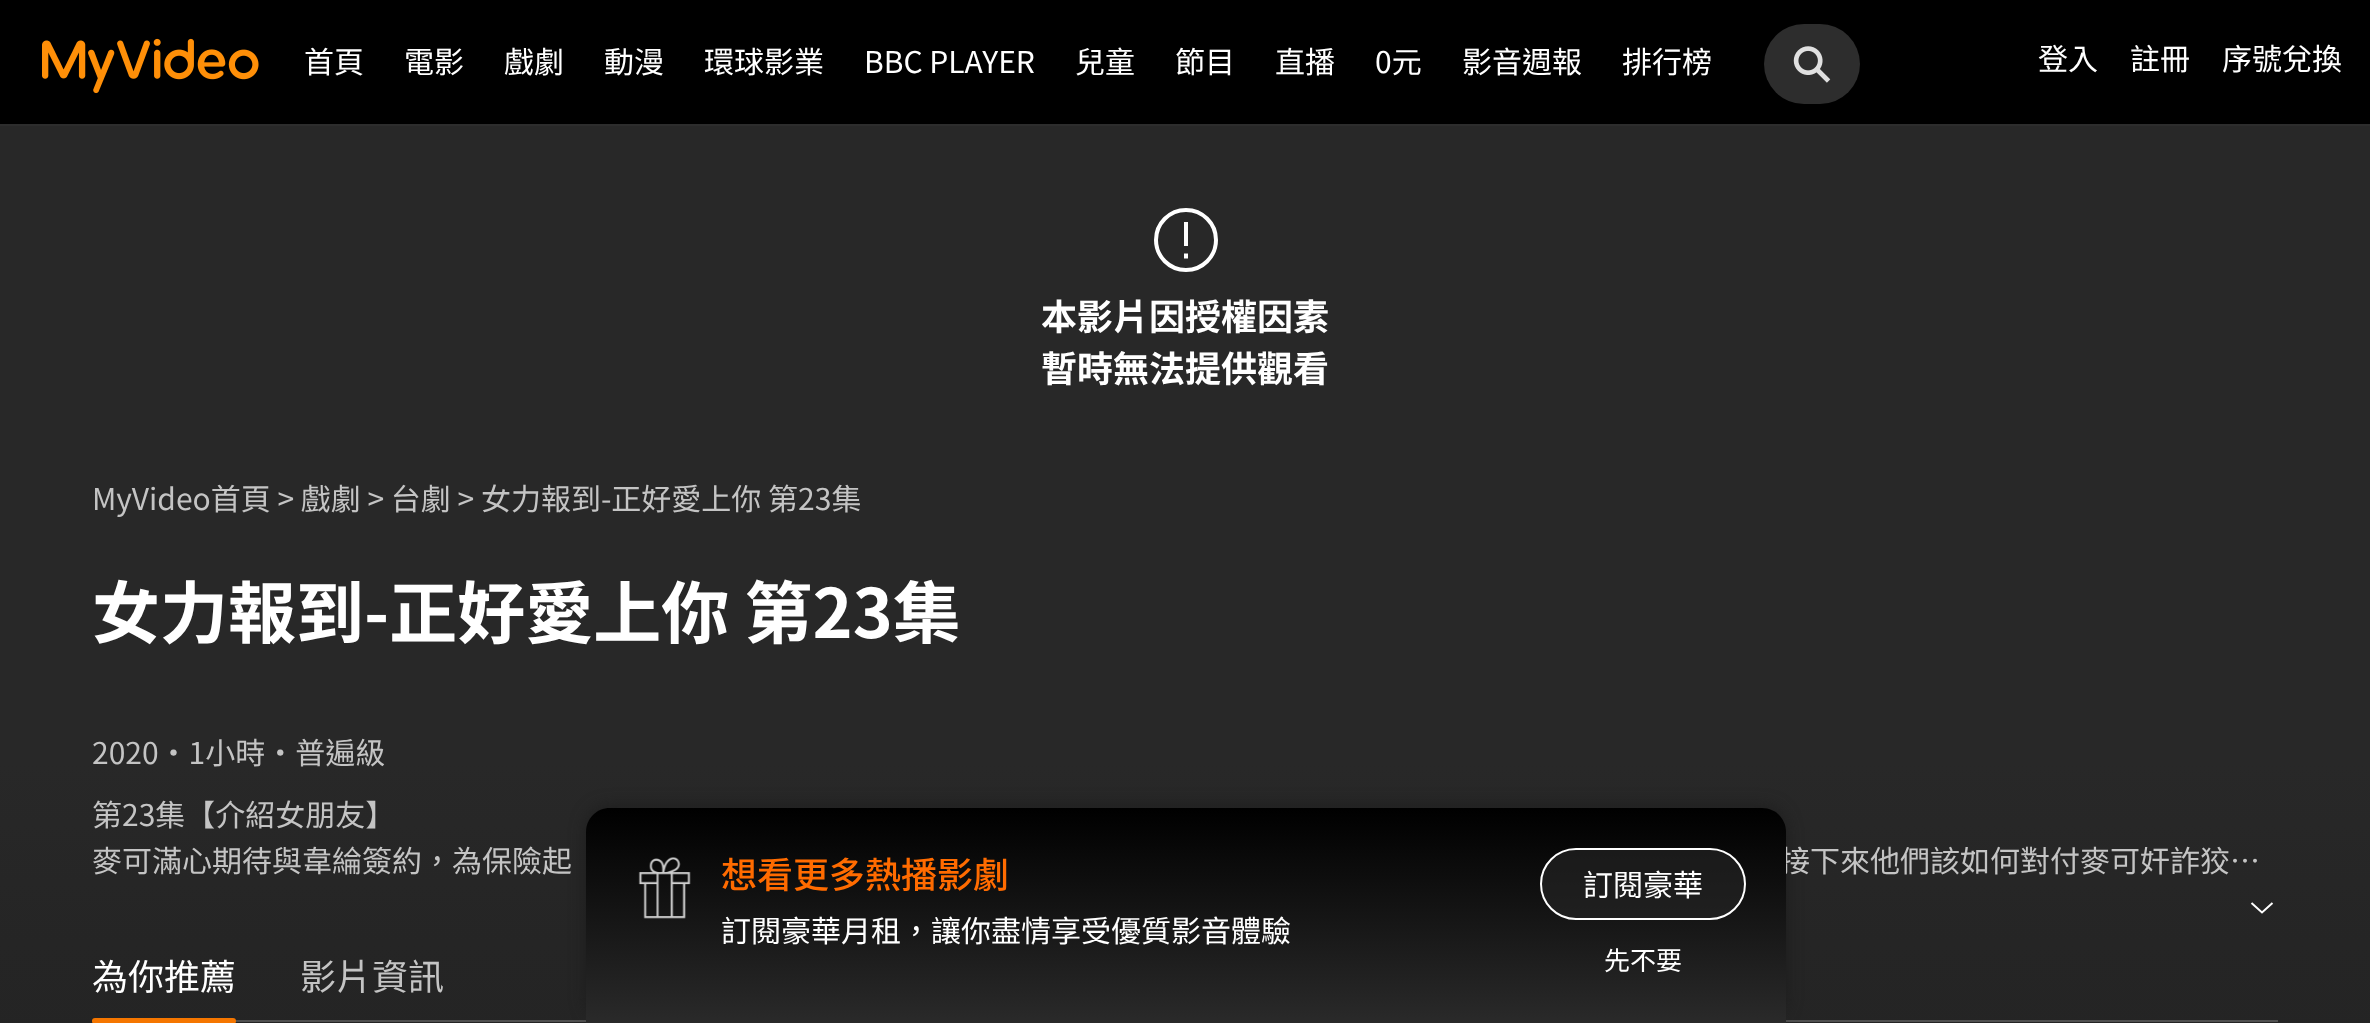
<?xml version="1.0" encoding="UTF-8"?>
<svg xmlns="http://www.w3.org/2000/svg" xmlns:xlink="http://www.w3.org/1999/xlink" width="2370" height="1023">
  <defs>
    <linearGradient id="g1" gradientUnits="userSpaceOnUse" x1="1185" y1="124" x2="1185" y2="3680"><stop offset="0.18" stop-color="#282828" /><stop offset="0.23" stop-color="#252525" /><stop offset="0.29" stop-color="#232323" /><stop offset="0.43" stop-color="#212121" /></linearGradient>
    <linearGradient id="g2" gradientUnits="userSpaceOnUse" x1="1186" y1="808" x2="1186" y2="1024"><stop offset="0" stop-color="#000000" /><stop offset="1" stop-color="#2a2a2a" /></linearGradient>
  </defs>
  <rect width="100%" height="100%" fill="#ffffff" />
  <rect width="2370" height="124" fill="#000000" />
  <rect y="124" width="2370" height="2" fill="#2d2d2d" />
  <image x="42" y="38" width="217" height="56" xlink:href="image1.png" />
  <rect x="1764" y="24" width="96" height="80" rx="40" fill="#2d2d2d" />
  <image x="1793" y="46" width="38" height="37" xlink:href="image2.png" />
  <rect y="126" width="2370" height="897" fill="url(#g1)" />
  <circle cx="1186" cy="240" r="30" fill="none" stroke="#ffffff" stroke-width="4" />
  <rect x="1184" y="222" width="4" height="24" fill="#ffffff" />
  <path d="M 1186 258.5 v -5" fill="none" stroke="#ffffff" stroke-width="4" />
  <path d="M 2272.5 903 l -10.5 9.5 l -10.5 -9.5" fill="none" stroke="#ffffff" stroke-width="2" />
  <rect x="92" y="1020" width="2186" height="2" fill="#505050" />
  <rect x="92" y="1018" width="144" height="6" rx="3" fill="#f57600" />
  <rect x="586" y="806" width="1200" height="216" rx="24" fill="#1b1b1b" fill-opacity="0.8" filter="blur(8px)" />
  <text x="304" y="73" style="font-family: Noto Sans TC; font-size: 30px; fill: #ffffff">首頁</text>
  <text x="404" y="73" style="font-family: Noto Sans TC; font-size: 30px; fill: #ffffff">電影</text>
  <text x="504" y="73" style="font-family: Noto Sans TC; font-size: 30px; fill: #ffffff">戲劇</text>
  <text x="604" y="73" style="font-family: Noto Sans TC; font-size: 30px; fill: #ffffff">動漫</text>
  <text x="704" y="73" style="font-family: Noto Sans TC; font-size: 30px; fill: #ffffff">環球影業</text>
  <text x="864" y="73" style="font-family: Noto Sans TC; font-size: 30px; fill: #ffffff">BBC PLAYER</text>
  <text x="1075" y="73" style="font-family: Noto Sans TC; font-size: 30px; fill: #ffffff">兒童</text>
  <text x="1175" y="73" style="font-family: Noto Sans TC; font-size: 30px; fill: #ffffff">節目</text>
  <text x="1275" y="73" style="font-family: Noto Sans TC; font-size: 30px; fill: #ffffff">直播</text>
  <text x="1375" y="73" style="font-family: Noto Sans TC; font-size: 30px; fill: #ffffff">0元</text>
  <text x="1462" y="73" style="font-family: Noto Sans TC; font-size: 30px; fill: #ffffff">影音週報</text>
  <text x="1622" y="73" style="font-family: Noto Sans TC; font-size: 30px; fill: #ffffff">排行榜</text>
  <text x="2038" y="70" style="font-family: Noto Sans TC; font-size: 30px; fill: #ffffff">登入</text>
  <text x="2130" y="70" style="font-family: Noto Sans TC; font-size: 30px; fill: #ffffff">註冊</text>
  <text x="2222" y="70" style="font-family: Noto Sans TC; font-size: 30px; fill: #ffffff">序號兌換</text>
  <text x="1041" y="330" style="font-family: Noto Sans TC; font-size: 36px; font-weight: bold; fill: #ffffff">本影片因授權因素</text>
  <text x="1041" y="382" style="font-family: Noto Sans TC; font-size: 36px; font-weight: bold; fill: #ffffff">暫時無法提供觀看</text>
  <text x="92" y="510" style="font-family: Noto Sans TC; font-size: 30px; fill: #c4c4c4">MyVideo首頁 &gt; 戲劇 &gt; 台劇 &gt; 女力報到-正好愛上你 第23集</text>
  <text x="92" y="638" style="font-family: Noto Sans TC; font-size: 68px; font-weight: bold; fill: #ffffff">女力報到-正好愛上你 第23集</text>
  <text x="92" y="764" style="font-family: Noto Sans TC; font-size: 30px; fill: #c4c4c4">2020・1小時・普遍級</text>
  <text x="92" y="826" style="font-family: Noto Sans TC; font-size: 30px; fill: #c4c4c4">第23集【介紹女朋友】</text>
  <text x="92" y="872" style="font-family: Noto Sans TC; font-size: 30px; fill: #c4c4c4">麥可滿心期待與韋綸簽約，為保險起</text>
  <text x="1780" y="872" style="font-family: Noto Sans TC; font-size: 30px; fill: #c4c4c4">接下來他們該如何對付麥可奸詐狡…</text>
  <text x="92" y="990" style="font-family: Noto Sans TC; font-size: 36px; fill: #ffffff">為你推薦</text>
  <text x="300" y="990" style="font-family: Noto Sans TC; font-size: 36px; fill: #c4c4c4">影片資訊</text>
  <path d="M 610 808 h 1152 c 13.5 0 24 10.5 24 24 v 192 h -1200 v -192 c 0 -13.5 10.5 -24 24 -24 z" fill="url(#g2)" />
  <image x="638" y="857" width="53" height="62" xlink:href="image3.png" />
  <text x="721" y="888" style="font-family: Noto Sans TC; font-size: 36px; font-weight: 500; fill: #ff6b00">想看更多熱播影劇</text>
  <text x="721" y="942" style="font-family: Noto Sans TC; font-size: 30px; fill: #ffffff">訂閱豪華月租，讓你盡情享受優質影音體驗</text>
  <rect x="1541" y="849" width="204" height="70" rx="35" fill="#262626" fill-opacity="0.6" stroke="#ffffff" stroke-width="2" />
  <text x="1583" y="896" style="font-family: Noto Sans TC; font-size: 30px; fill: #ffffff">訂閱豪華</text>
  <text x="1604" y="970" style="font-family: Noto Sans TC; font-size: 26px; fill: #ffffff">先不要</text>
</svg>
